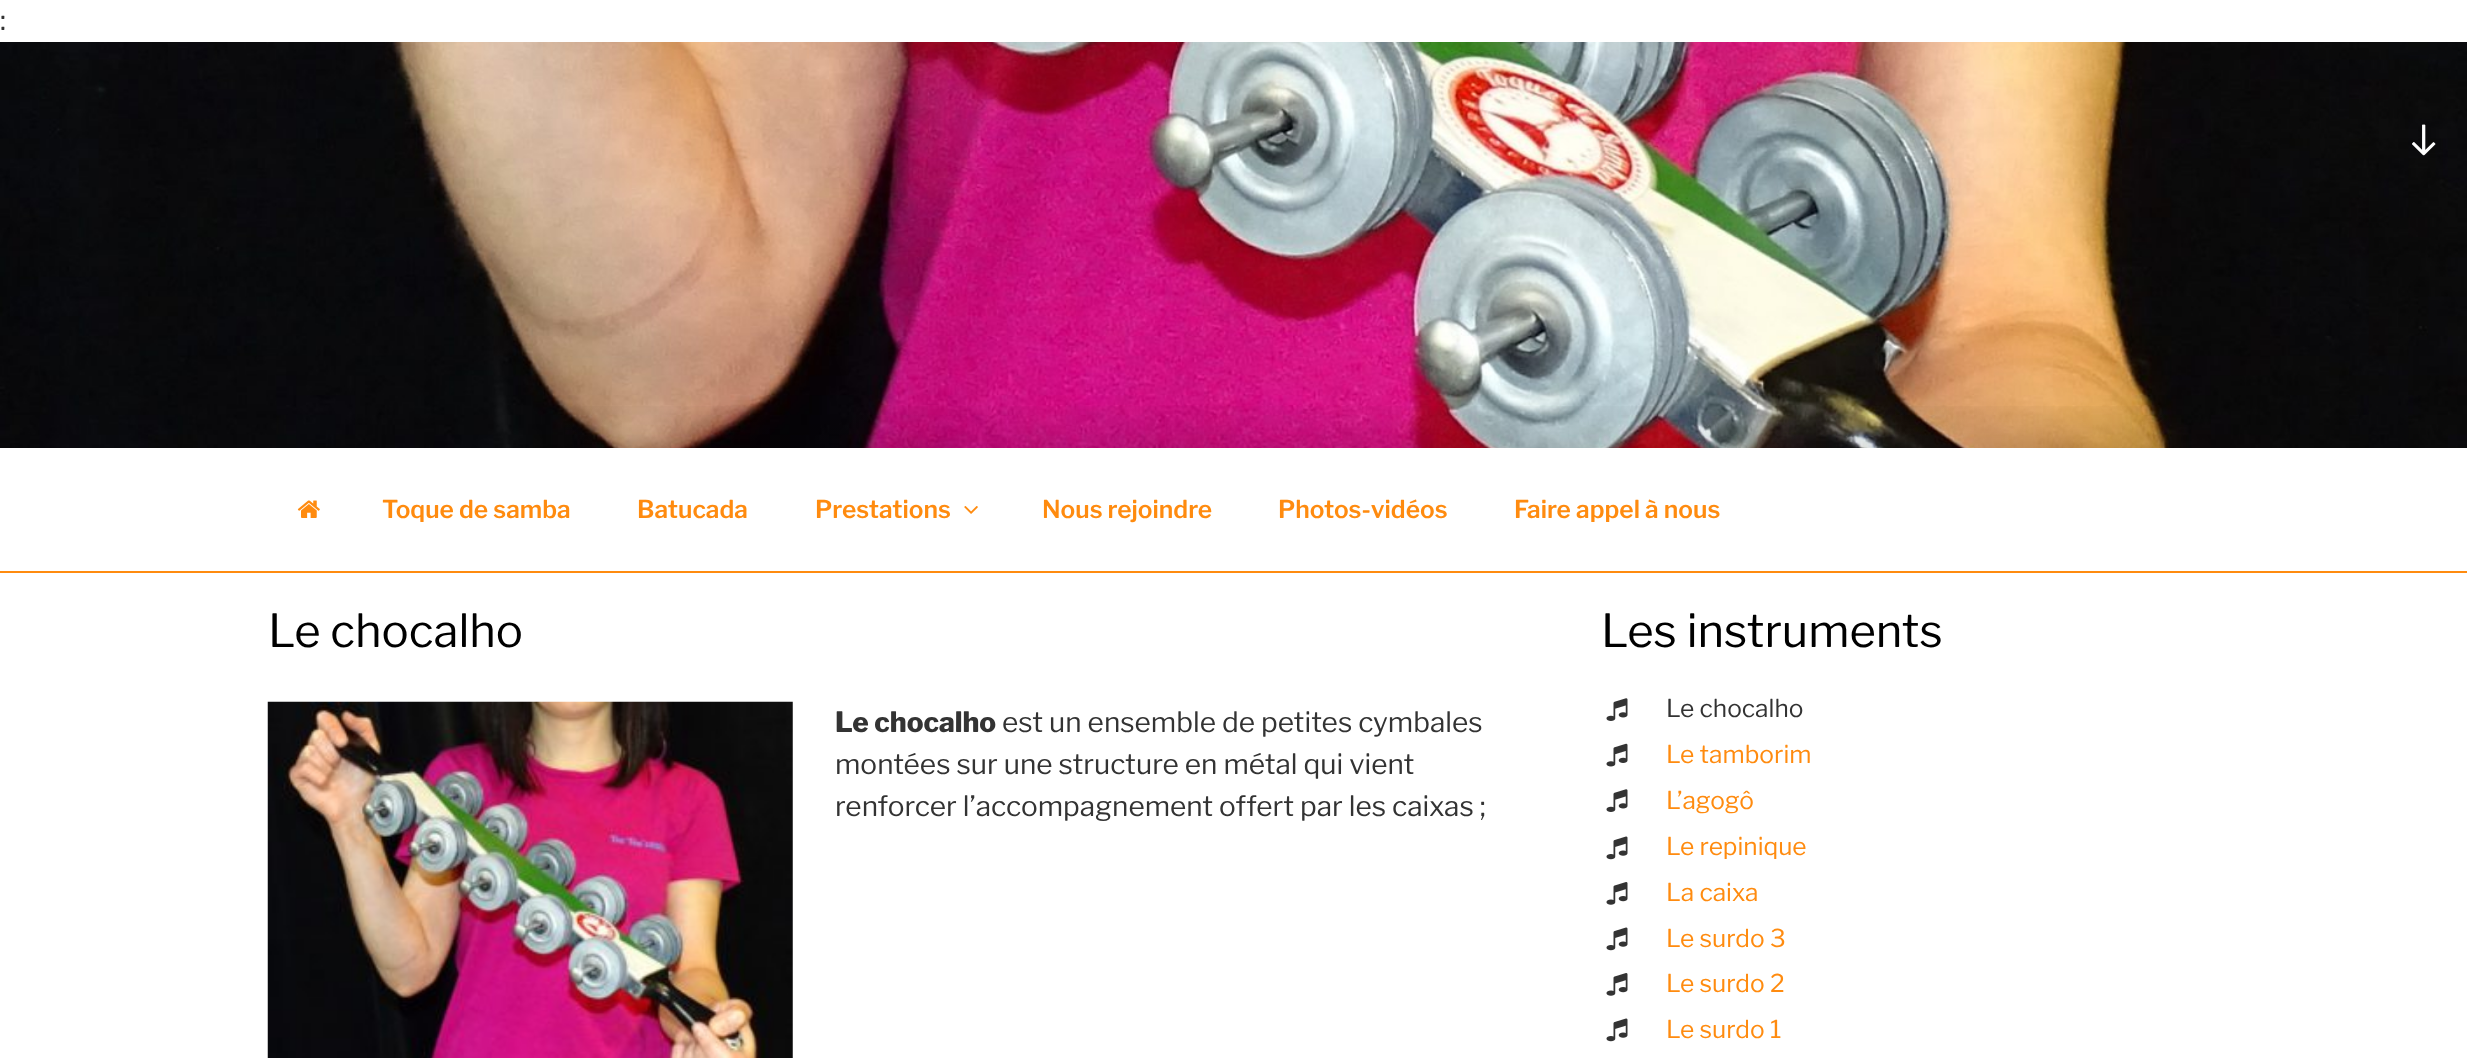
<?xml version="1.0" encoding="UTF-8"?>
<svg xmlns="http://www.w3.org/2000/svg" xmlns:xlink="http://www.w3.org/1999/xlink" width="2467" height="1058">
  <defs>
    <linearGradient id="g1" gradientUnits="userSpaceOnUse" x1="1234" y1="397" x2="1234" y2="572"><stop offset="0" stop-color="#000000" stop-opacity="0" /><stop offset="0.75" stop-color="#000000" stop-opacity="0.3" /><stop offset="1" stop-color="#000000" stop-opacity="0.3" /></linearGradient>
  </defs>
  <rect width="100%" height="100%" fill="#ffffff" />
  <image x="0" y="42" width="2467" height="406" xlink:href="image1.png" />
  <rect x="564" y="406" width="1606" height="42" fill="url(#g1)" />
  <image x="2412" y="124" width="24" height="32" xlink:href="image2.png" />
  <rect y="571" width="2467" height="2" fill="#ff8b0f" />
  <image x="297" y="500" width="23" height="18" xlink:href="image3.png" />
  <image x="964" y="506" width="14" height="8" xlink:href="image4.png" />
  <image x="267" y="701" width="526" height="357" xlink:href="image5.png" />
  <image x="1606" y="698" width="22" height="23" xlink:href="image6.png" />
  <image x="1606" y="743" width="22" height="24" xlink:href="image7.png" />
  <image x="1606" y="789" width="22" height="23" xlink:href="image6.png" />
  <image x="1606" y="836" width="22" height="24" xlink:href="image8.png" />
  <image x="1606" y="882" width="22" height="23" xlink:href="image9.png" />
  <image x="1606" y="927" width="22" height="24" xlink:href="image8.png" />
  <image x="1606" y="973" width="22" height="23" xlink:href="image9.png" />
  <image x="1606" y="1018" width="22" height="24" xlink:href="image8.png" />
  <text x="0" y="30" style="font-family: Libre Franklin; font-size: 28px; font-weight: 100; fill: #333333">:</text>
  <text x="382" y="518" style="font-family: 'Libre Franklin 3'; font-size: 24.5px; font-weight: 100; fill: #ff8b0f">Toque de samba</text>
  <text x="637" y="518" style="font-family: 'Libre Franklin 3'; font-size: 24.5px; font-weight: 100; fill: #ff8b0f">Batucada</text>
  <text x="815" y="518" style="font-family: 'Libre Franklin 3'; font-size: 24.5px; font-weight: 100; fill: #ff8b0f">Prestations</text>
  <text x="1042" y="518" style="font-family: 'Libre Franklin 3'; font-size: 24.5px; font-weight: 100; fill: #ff8b0f">Nous rejoindre</text>
  <text x="1278" y="518" style="font-family: 'Libre Franklin 3'; font-size: 24.5px; font-weight: 100; fill: #ff8b0f">Photos-vidéos</text>
  <text x="1514" y="518" style="font-family: 'Libre Franklin 3'; font-size: 24.5px; font-weight: 100; fill: #ff8b0f">Faire appel à nous</text>
  <text x="268" y="647" style="font-family: Libre Franklin; font-size: 45.5px; font-weight: 100; fill: #000000">Le chocalho</text>
  <text x="835" y="732" style="font-family: 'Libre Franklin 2'; font-size: 28px; font-weight: 100; fill: #333333">Le chocalho</text>
  <text x="1002" y="732" style="font-family: Libre Franklin; font-size: 28px; font-weight: 100; fill: #333333">est un ensemble de petites cymbales</text>
  <text x="835" y="774" style="font-family: Libre Franklin; font-size: 28px; font-weight: 100; fill: #333333">montées sur une structure en métal qui vient</text>
  <text x="835" y="816" style="font-family: Libre Franklin; font-size: 28px; font-weight: 100; fill: #333333">renforcer l’accompagnement offert par les caixas ;</text>
  <text x="1601" y="647" style="font-family: Libre Franklin; font-size: 45.5px; font-weight: 100; fill: #000000">Les instruments</text>
  <text x="1666" y="717" style="font-family: Libre Franklin; font-size: 24.5px; font-weight: 100; fill: #333333">Le chocalho</text>
  <text x="1666" y="763" style="font-family: Libre Franklin; font-size: 24.5px; font-weight: 100; fill: #ff8b0f">Le tamborim</text>
  <text x="1666" y="809" style="font-family: Libre Franklin; font-size: 24.5px; font-weight: 100; fill: #ff8b0f">L’agogô</text>
  <text x="1666" y="855" style="font-family: Libre Franklin; font-size: 24.5px; font-weight: 100; fill: #ff8b0f">Le repinique</text>
  <text x="1666" y="901" style="font-family: Libre Franklin; font-size: 24.5px; font-weight: 100; fill: #ff8b0f">La caixa</text>
  <text x="1666" y="947" style="font-family: Libre Franklin; font-size: 24.5px; font-weight: 100; fill: #ff8b0f">Le surdo 3</text>
  <text x="1666" y="992" style="font-family: Libre Franklin; font-size: 24.5px; font-weight: 100; fill: #ff8b0f">Le surdo 2</text>
  <text x="1666" y="1038" style="font-family: Libre Franklin; font-size: 24.5px; font-weight: 100; fill: #ff8b0f">Le surdo 1</text>
</svg>
